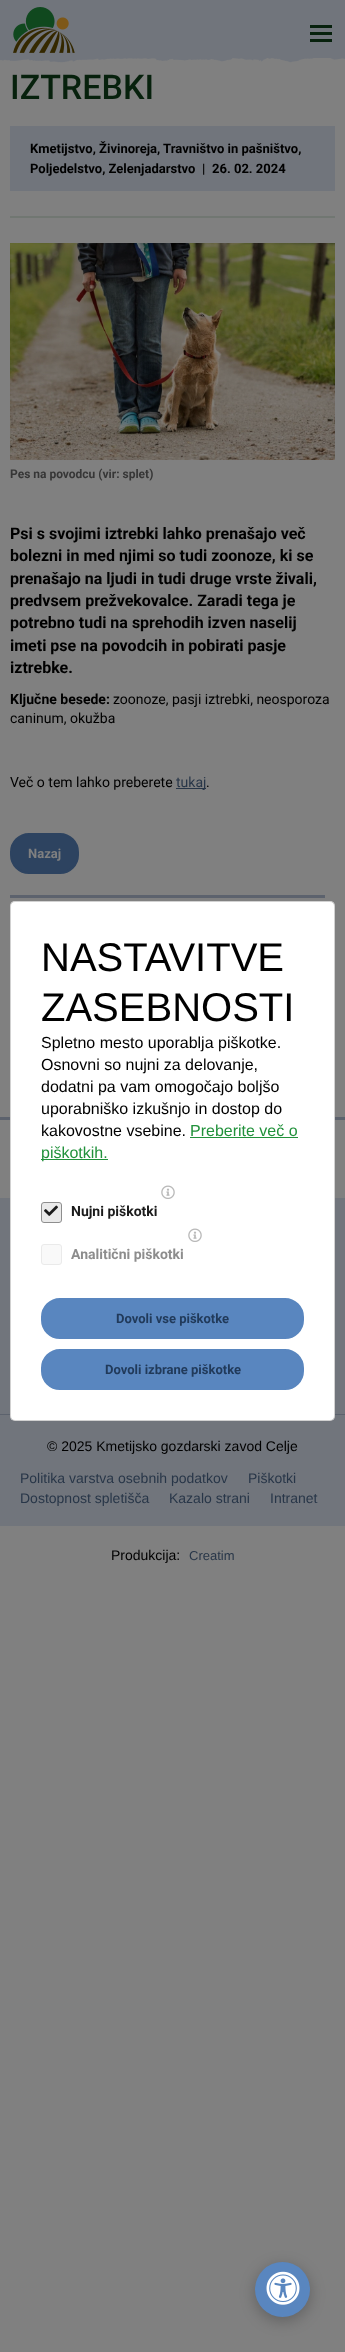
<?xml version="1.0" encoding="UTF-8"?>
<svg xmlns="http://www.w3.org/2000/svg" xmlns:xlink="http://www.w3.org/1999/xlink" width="345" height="2352">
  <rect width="100%" height="100%" fill="#808080" />
  <rect width="345" height="58" fill="#71757c" />
  <image x="13" y="7" width="62" height="46" xlink:href="image1.png" />
  <rect x="310" y="32" width="22" height="3" fill="#07210d" />
  <rect x="310" y="25" width="22" height="3" fill="#07210d" />
  <rect x="310" y="39" width="22" height="3" fill="#07210d" />
  <image x="0" y="58" width="345" height="5" xlink:href="image2.png" />
  <rect x="10" y="216" width="325" height="2" fill="#717772" />
  <rect x="10" y="126" width="325" height="65" fill="#71757c" />
  <image x="10" y="243" width="325" height="217" xlink:href="image3.png" />
  <rect x="176" y="788" width="30" height="1" fill="#283648" />
  <rect x="11" y="834" width="67" height="39" rx="18" fill="#2d4360" stroke="#2d4360" stroke-width="2" />
  <rect x="10" y="895" width="315" height="3" fill="#5c626d" />
  <rect y="1117" width="345" height="3" fill="#5c626d" />
  <rect y="1198" width="345" height="328" fill="#71757c" />
  <rect y="1414" width="345" height="1" fill="#5c626d" />
  <rect x="10" y="901" width="325" height="520" rx="5" fill="#ffffff" />
  <rect x="10.5" y="901.5" width="324" height="519" rx="4.5" fill="none" stroke="#000000" stroke-opacity="0.18" />
  <rect x="190" y="1137" width="108" height="1" fill="#21913b" />
  <rect x="41" y="1159" width="67" height="1" fill="#21913b" />
  <image x="161" y="1185" width="14" height="14" xlink:href="image4.png" />
  <rect x="41.5" y="1202.5" width="20" height="20" rx="2.5" fill="#eaeaea" stroke="#8e8e8e" />
  <image x="44" y="1205" width="14" height="11" xlink:href="image5.png" />
  <image x="188" y="1228" width="14" height="14" xlink:href="image4.png" />
  <rect x="41.5" y="1244.5" width="20" height="20" rx="2.5" fill="#f9f9f9" stroke="#eaeaea" />
  <rect x="42" y="1299" width="261" height="39" rx="18" fill="#5986bf" stroke="#5986bf" stroke-width="2" />
  <rect x="42" y="1350" width="261" height="39" rx="18" fill="#5986bf" stroke="#5986bf" stroke-width="2" />
  <rect x="255" y="2266" width="55" height="55" rx="27.5" fill="#000000" fill-opacity="0.25" filter="blur(7.5px)" />
  <circle cx="282.5" cy="2289.5" r="27.5" fill="#5986bf" />
  <image x="266" y="2271" width="34" height="34" xlink:href="image6.png" />
  <text x="10" y="99" style="font-family: Roboto; font-size: 34px; font-weight: 500; fill: #07210d">IZTREBKI</text>
  <text x="30" y="153" style="font-family: Roboto; font-size: 13px; font-weight: bold; fill: #000000">Kmetijstvo, Živinoreja, Travništvo in pašništvo,</text>
  <text x="30" y="173" style="font-family: Roboto; font-size: 13px; font-weight: bold; fill: #000000">Poljedelstvo, Zelenjadarstvo</text>
  <text x="202" y="173" style="font-family: Roboto; font-size: 13px; font-weight: bold; fill: #000000">|</text>
  <text x="212" y="173" style="font-family: Roboto; font-size: 13px; font-weight: bold; fill: #000000">26. 02. 2024</text>
  <text x="10" y="478" style="font-family: Roboto; font-size: 12px; font-weight: bold; fill: #363636">Pes na povodcu (vir: splet)</text>
  <text x="10" y="539" style="font-family: Roboto; font-size: 16px; font-weight: bold; fill: #000000">Psi s svojimi iztrebki lahko prenašajo več</text>
  <text x="10" y="561" style="font-family: Roboto; font-size: 16px; font-weight: bold; fill: #000000">bolezni in med njimi so tudi zoonoze, ki se</text>
  <text x="10" y="584" style="font-family: Roboto; font-size: 16px; font-weight: bold; fill: #000000">prenašajo na ljudi in tudi druge vrste živali,</text>
  <text x="10" y="606" style="font-family: Roboto; font-size: 16px; font-weight: bold; fill: #000000">predvsem prežvekovalce. Zaradi tega je</text>
  <text x="10" y="628" style="font-family: Roboto; font-size: 16px; font-weight: bold; fill: #000000">potrebno tudi na sprehodih izven naselij</text>
  <text x="10" y="651" style="font-family: Roboto; font-size: 16px; font-weight: bold; fill: #000000">imeti pse na povodcih in pobirati pasje</text>
  <text x="10" y="673" style="font-family: Roboto; font-size: 16px; font-weight: bold; fill: #000000">iztrebke.</text>
  <text x="10" y="704" style="font-family: Roboto; font-size: 14px; font-weight: bold; fill: #000000">Ključne besede:</text>
  <text x="113" y="704" style="font-family: Roboto; font-size: 14px; fill: #000000">zoonoze, pasji iztrebki, neosporoza</text>
  <text x="10" y="723" style="font-family: Roboto; font-size: 14px; fill: #000000">caninum, okužba</text>
  <text x="10" y="787" style="font-family: Roboto; font-size: 14px; fill: #000000">Več o tem lahko preberete</text>
  <text x="176" y="787" style="font-family: Roboto; font-size: 14px; fill: #283648">tukaj</text>
  <text x="206" y="787" style="font-family: Roboto; font-size: 14px; fill: #000000">.</text>
  <text x="28" y="858" style="font-family: Roboto; font-size: 13px; font-weight: bold; fill: #808080">Nazaj</text>
  <text x="41" y="971" style="font-family: Liberation Sans; font-size: 40px; fill: #000000">NASTAVITVE</text>
  <text x="41" y="1021" style="font-family: Liberation Sans; font-size: 40px; fill: #000000">ZASEBNOSTI</text>
  <text x="41" y="1048" style="font-family: Liberation Sans; font-size: 16px; fill: #000000">Spletno mesto uporablja piškotke.</text>
  <text x="41" y="1070" style="font-family: Liberation Sans; font-size: 16px; fill: #000000">Osnovni so nujni za delovanje,</text>
  <text x="41" y="1092" style="font-family: Liberation Sans; font-size: 16px; fill: #000000">dodatni pa vam omogočajo boljšo</text>
  <text x="41" y="1114" style="font-family: Liberation Sans; font-size: 16px; fill: #000000">uporabniško izkušnjo in dostop do</text>
  <text x="41" y="1136" style="font-family: Liberation Sans; font-size: 16px; fill: #000000">kakovostne vsebine.</text>
  <text x="190" y="1136" style="font-family: Liberation Sans; font-size: 16px; fill: #21913b">Preberite več o</text>
  <text x="41" y="1158" style="font-family: Liberation Sans; font-size: 16px; fill: #21913b">piškotkih.</text>
  <text x="71" y="1216" style="font-family: Roboto; font-size: 14px; font-weight: bold; fill: #1b1b1b">Nujni piškotki</text>
  <text x="71" y="1259" style="font-family: Roboto; font-size: 14px; font-weight: bold; fill: #8d8d8d">Analitični piškotki</text>
  <text x="116" y="1323" style="font-family: Roboto; font-size: 13px; font-weight: bold; fill: #213a5a">Dovoli vse piškotke</text>
  <text x="105" y="1374" style="font-family: Roboto; font-size: 13px; font-weight: bold; fill: #213a5a">Dovoli izbrane piškotke</text>
  <text x="47" y="1451" style="font-family: Liberation Sans; font-size: 14px; fill: #000000">© 2025 Kmetijsko gozdarski zavod Celje</text>
  <text x="20" y="1483" style="font-family: Liberation Sans; font-size: 14px; fill: #283648">Politika varstva osebnih podatkov</text>
  <text x="248" y="1483" style="font-family: Liberation Sans; font-size: 14px; fill: #283648">Piškotki</text>
  <text x="20" y="1503" style="font-family: Liberation Sans; font-size: 14px; fill: #283648">Dostopnost spletišča</text>
  <text x="169" y="1503" style="font-family: Liberation Sans; font-size: 14px; fill: #283648">Kazalo strani</text>
  <text x="270" y="1503" style="font-family: Liberation Sans; font-size: 14px; fill: #283648">Intranet</text>
  <text x="111" y="1560" style="font-family: Liberation Sans; font-size: 14px; fill: #000000">Produkcija:</text>
  <text x="189" y="1560" style="font-family: Liberation Sans; font-size: 13px; fill: #283648">Creatim</text>
</svg>
